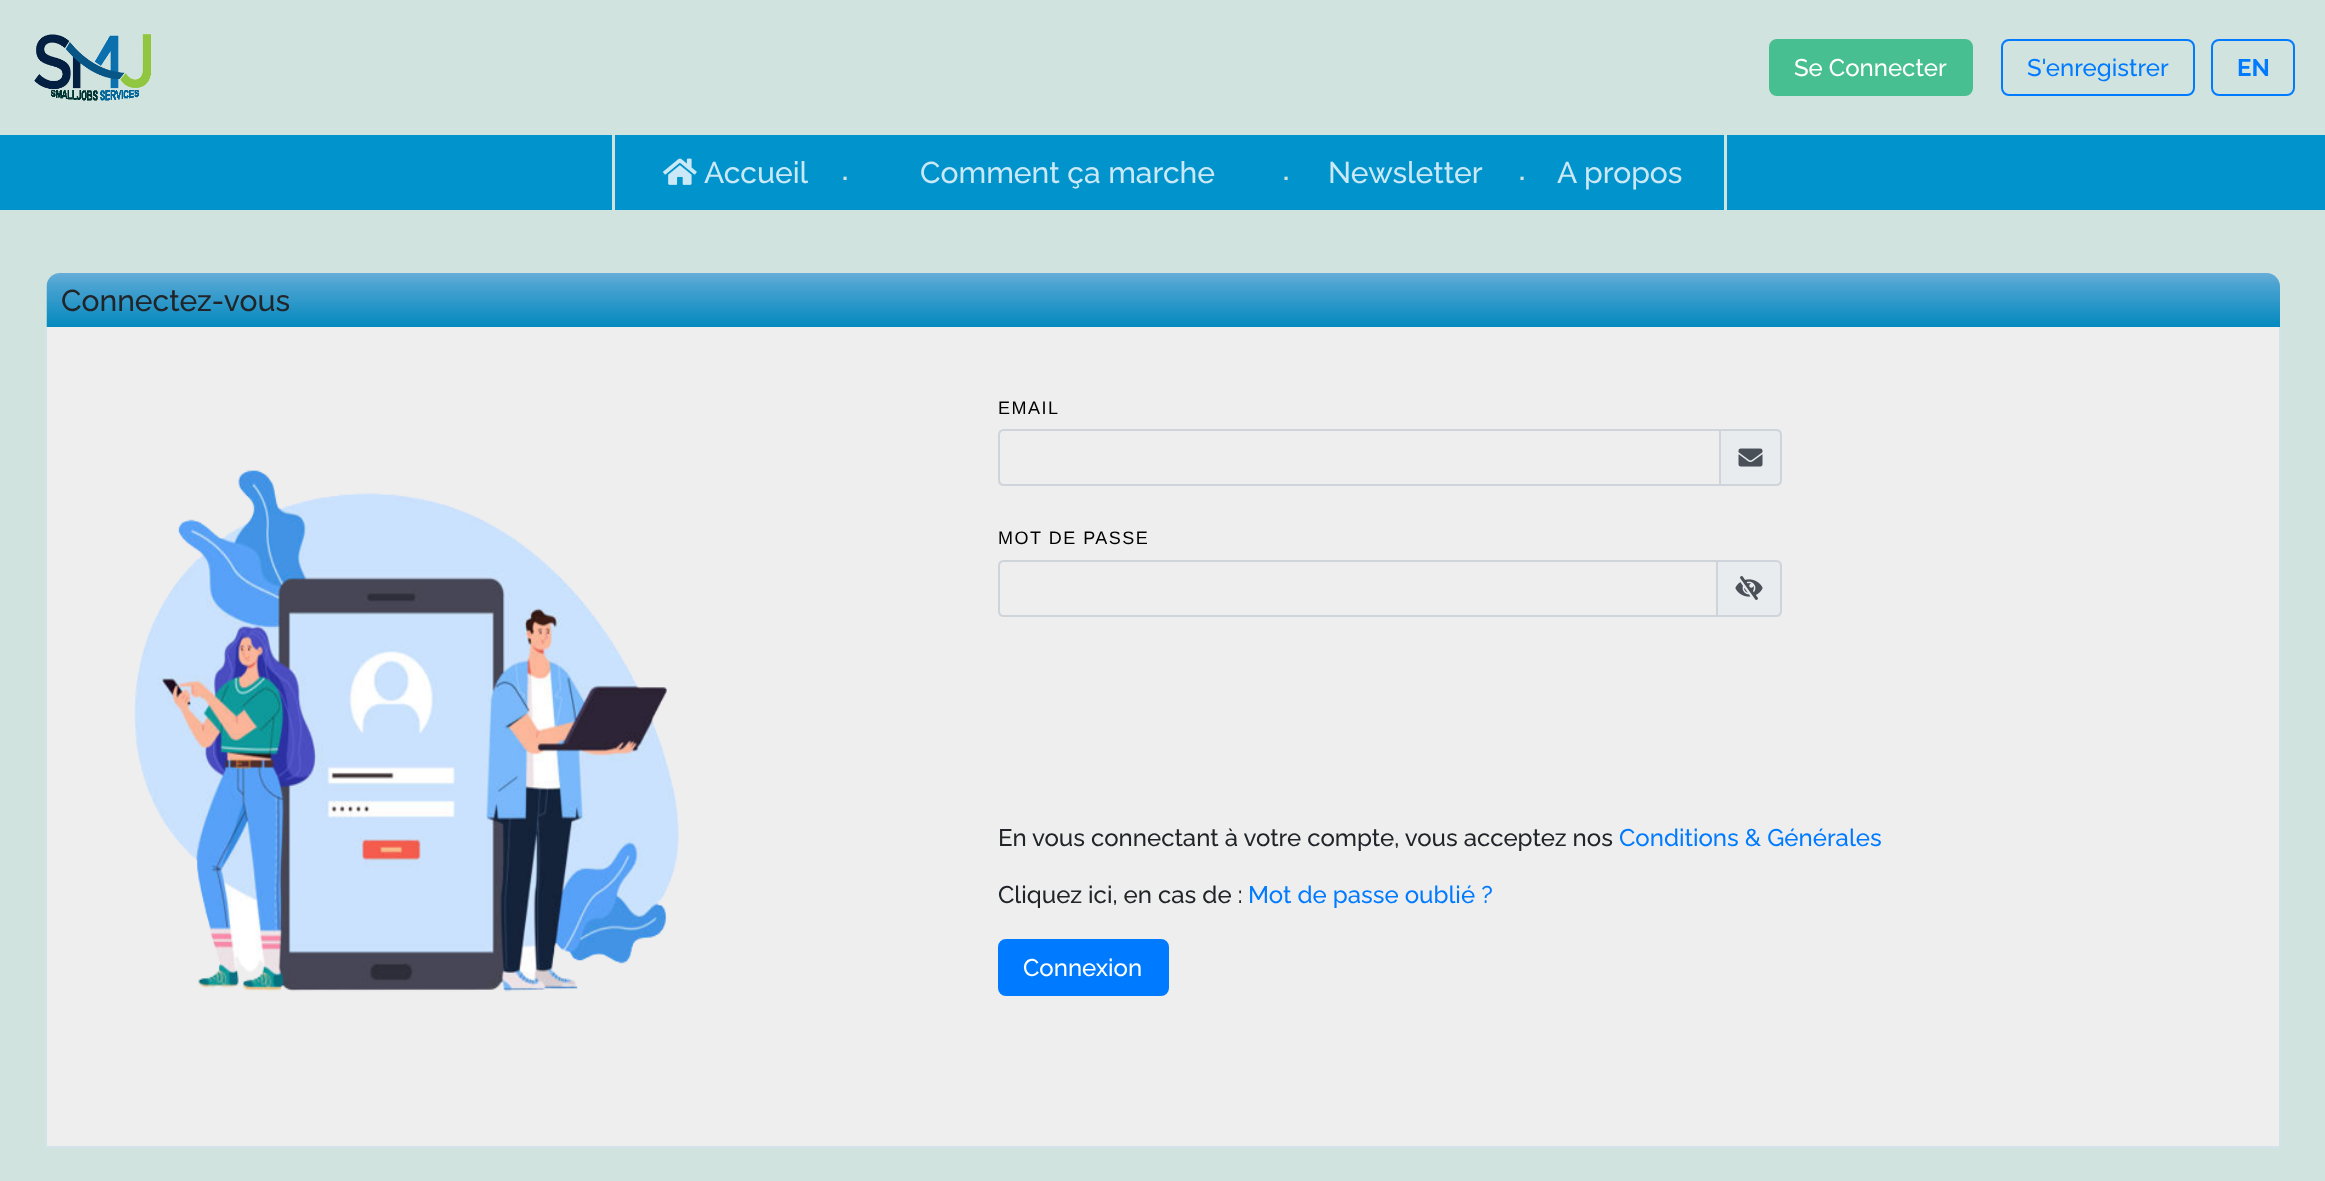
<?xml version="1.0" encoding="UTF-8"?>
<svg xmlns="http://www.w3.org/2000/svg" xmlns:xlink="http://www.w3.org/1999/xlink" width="2325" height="1181">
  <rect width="100%" height="100%" fill="#d1e3de" />
  <image x="34" y="34" width="118" height="67" xlink:href="image1.png" />
  <rect x="1770" y="40" width="202" height="55" rx="7" fill="#48bf91" stroke="#48bf91" stroke-width="2" />
  <rect x="2002" y="40" width="192" height="55" rx="7" fill="none" stroke="#007bff" stroke-width="2" />
  <rect x="2212" y="40" width="82" height="55" rx="7" fill="none" stroke="#007bff" stroke-width="2" />
  <rect y="135" width="2325" height="75" fill="#0193cc" />
  <rect x="612" y="135" width="3" height="75" fill="#d1e3df" />
  <image x="663" y="158" width="34" height="27" xlink:href="image2.png" />
  <rect x="1724" y="135" width="3" height="75" fill="#d1e3df" />
  <image x="46" y="273" width="2234" height="54" xlink:href="image3.png" />
  <rect x="47" y="327" width="2232" height="819" fill="#eeeeee" />
  <rect x="2279" y="327" width="2" height="821" fill="#d4e3ea" />
  <rect x="45" y="1146" width="2235" height="2" fill="#d4e3ea" />
  <rect x="45" y="327" width="2" height="821" fill="#d4e3ea" />
  <image x="134" y="470" width="545" height="522" xlink:href="image4.png" />
  <path d="M 1720 430 h 56 c 3 0 5 2 5 5 v 45 c 0 3 -2 5 -5 5 h -56 z" fill="#e9ecef" stroke="#ced4da" stroke-width="2" />
  <path d="M 1004 430 h 716 v 55 h -716 c -3 0 -5 -2 -5 -5 v -45 c 0 -3 2 -5 5 -5 z" fill="#eeeeee" stroke="#ced4da" stroke-width="2" />
  <image x="1738" y="448" width="25" height="19" xlink:href="image5.png" />
  <path d="M 1717 561 h 59 c 3 0 5 2 5 5 v 45 c 0 3 -2 5 -5 5 h -59 z" fill="#e9ecef" stroke="#ced4da" stroke-width="2" />
  <path d="M 1004 561 h 713 v 55 h -713 c -3 0 -5 -2 -5 -5 v -45 c 0 -3 2 -5 5 -5 z" fill="#eeeeee" stroke="#ced4da" stroke-width="2" />
  <image x="1735" y="576" width="28" height="24" xlink:href="image6.png" />
  <rect x="999" y="940" width="169" height="55" rx="7" fill="#007bff" stroke="#007bff" stroke-width="2" />
  <text x="1794" y="76" style="font-family: Raleway; font-size: 24px; font-weight: 500; fill: #ffffff">Se Connecter</text>
  <text x="2027" y="76" style="font-family: Raleway; font-size: 24px; font-weight: 500; fill: #007bff">S'enregistrer</text>
  <text x="2237" y="76" style="font-family: Raleway; font-size: 24px; font-weight: bold; fill: #007bff">EN</text>
  <text x="704" y="183" style="font-family: Raleway; font-size: 30px; font-weight: 500; fill: #cae8f5">Accueil</text>
  <text x="842" y="180" style="font-family: Liberation Sans; font-size: 22px; font-weight: bold; fill: #d1e3df">.</text>
  <text x="920" y="183" style="font-family: Raleway; font-size: 30px; font-weight: 500; fill: #cae8f5">Comment ça marche</text>
  <text x="1283" y="180" style="font-family: Liberation Sans; font-size: 22px; font-weight: bold; fill: #d1e3df">.</text>
  <text x="1328" y="183" style="font-family: Raleway; font-size: 30px; font-weight: 500; fill: #cae8f5">Newsletter</text>
  <text x="1519" y="180" style="font-family: Liberation Sans; font-size: 22px; font-weight: bold; fill: #d1e3df">.</text>
  <text x="1557" y="183" style="font-family: Raleway; font-size: 30px; font-weight: 500; fill: #cae8f5">A propos</text>
  <text x="61" y="311" style="font-family: Raleway; font-size: 30px; font-weight: 500; fill: #212529">Connectez-vous</text>
  <text x="998" y="414" style="font-family: Liberation Sans; font-size: 18px; letter-spacing: 1.5px; fill: #000000">EMAIL</text>
  <text x="998" y="544" style="font-family: Liberation Sans; font-size: 18px; letter-spacing: 1.5px; fill: #000000">MOT DE PASSE</text>
  <text x="998" y="846" style="font-family: Raleway; font-size: 24px; font-weight: 500; fill: #212529">En vous connectant à votre compte, vous acceptez nos</text>
  <text x="1619" y="846" style="font-family: Raleway; font-size: 24px; font-weight: 500; fill: #007bff">Conditions &amp; Générales</text>
  <text x="998" y="903" style="font-family: Raleway; font-size: 24px; font-weight: 500; fill: #212529">Cliquez ici, en cas de :</text>
  <text x="1248" y="903" style="font-family: Raleway; font-size: 24px; font-weight: 500; fill: #007bff">Mot de passe oublié ?</text>
  <text x="1023" y="976" style="font-family: Raleway; font-size: 24px; font-weight: 500; fill: #ffffff">Connexion</text>
</svg>
